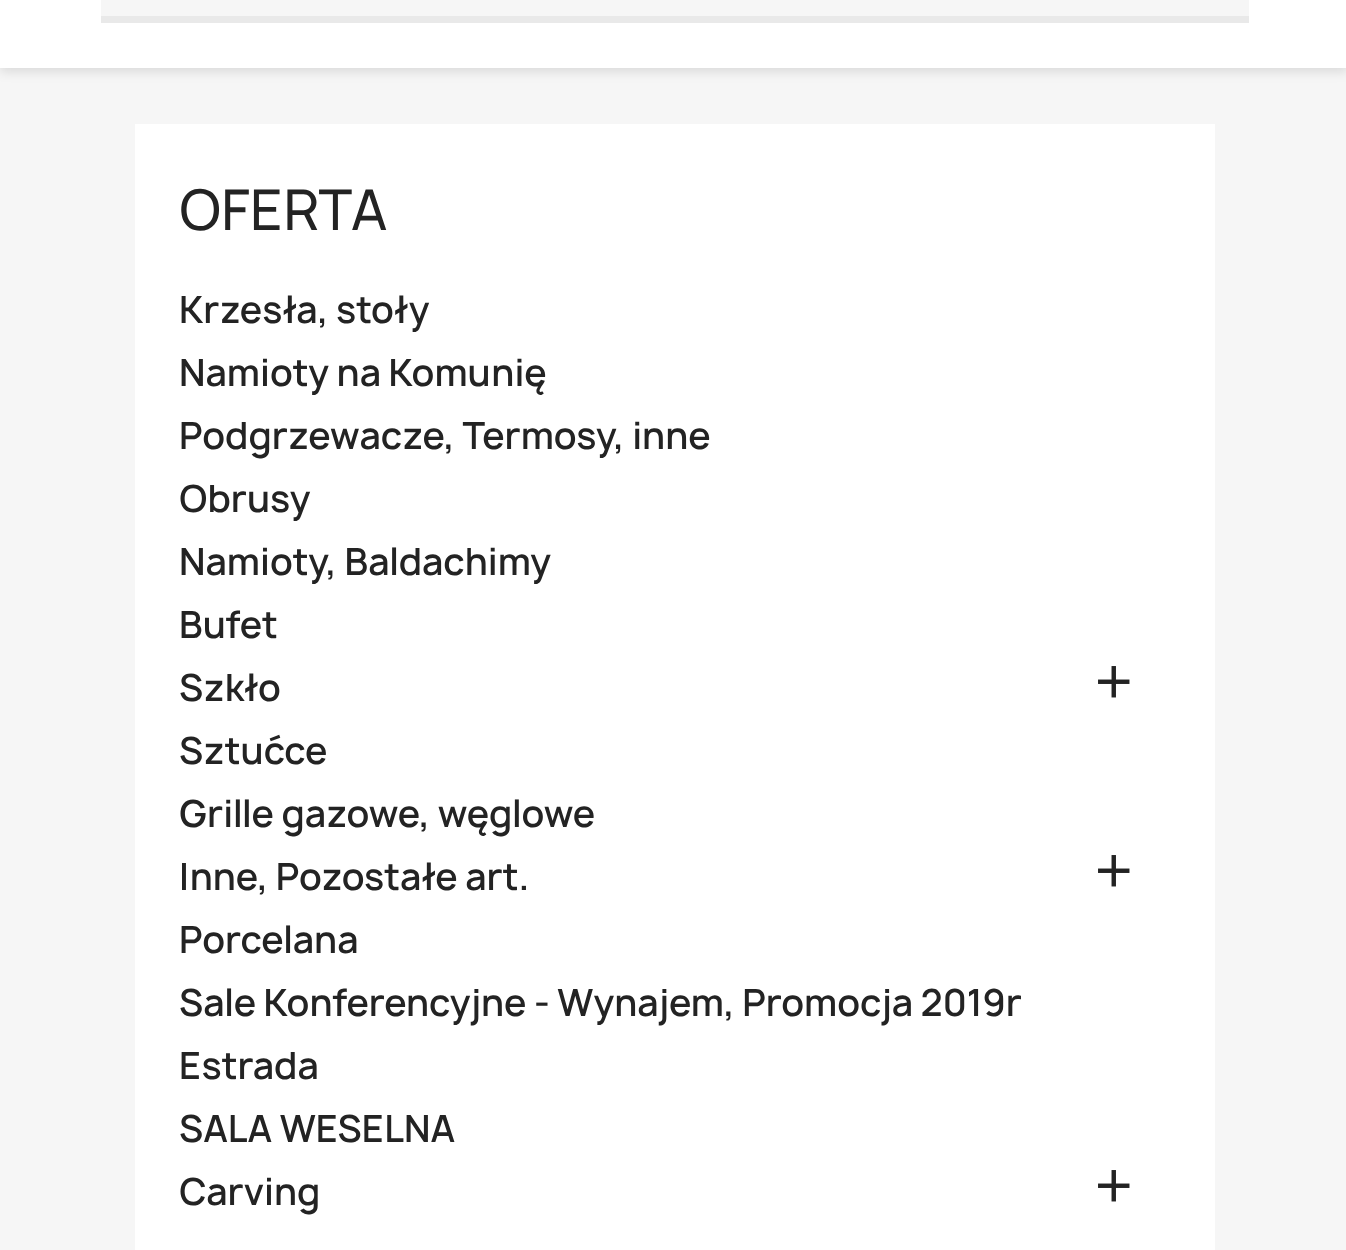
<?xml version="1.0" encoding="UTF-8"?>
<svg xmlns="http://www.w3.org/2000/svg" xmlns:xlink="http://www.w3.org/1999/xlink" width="1346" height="1250">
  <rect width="100%" height="100%" fill="#f6f6f6" />
  <rect y="-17" width="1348" height="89" fill="#000000" fill-opacity="0.11" filter="blur(5.5px)" />
  <rect width="1346" height="68" fill="#ffffff" />
  <rect x="101" width="1148" height="16" fill="#f6f6f6" />
  <rect x="101" y="16" width="1148" height="7" fill="#e9e9e9" />
  <rect x="135" y="124" width="1080" height="1126" fill="#ffffff" />
  <image x="1098" y="666" width="32" height="32" xlink:href="image1.png" />
  <image x="1098" y="855" width="32" height="32" xlink:href="image1.png" />
  <image x="1098" y="1170" width="32" height="32" xlink:href="image1.png" />
  <text x="179" y="230" style="font-family: Manrope; font-size: 54px; font-weight: 500; fill: #232323">OFERTA</text>
  <text x="179" y="323" style="font-family: Manrope; font-size: 36px; font-weight: 600; fill: #232323">Krzesła, stoły</text>
  <text x="179" y="386" style="font-family: Manrope; font-size: 36px; font-weight: 600; fill: #232323">Namioty na Komunię</text>
  <text x="179" y="449" style="font-family: Manrope; font-size: 36px; font-weight: 600; fill: #232323">Podgrzewacze, Termosy, inne</text>
  <text x="179" y="512" style="font-family: Manrope; font-size: 36px; font-weight: 600; fill: #232323">Obrusy</text>
  <text x="179" y="575" style="font-family: Manrope; font-size: 36px; font-weight: 600; fill: #232323">Namioty, Baldachimy</text>
  <text x="179" y="638" style="font-family: Manrope; font-size: 36px; font-weight: 600; fill: #232323">Bufet</text>
  <text x="179" y="701" style="font-family: Manrope; font-size: 36px; font-weight: 600; fill: #232323">Szkło</text>
  <text x="179" y="764" style="font-family: Manrope; font-size: 36px; font-weight: 600; fill: #232323">Sztućce</text>
  <text x="179" y="827" style="font-family: Manrope; font-size: 36px; font-weight: 600; fill: #232323">Grille gazowe, węglowe</text>
  <text x="179" y="890" style="font-family: Manrope; font-size: 36px; font-weight: 600; fill: #232323">Inne, Pozostałe art.</text>
  <text x="179" y="953" style="font-family: Manrope; font-size: 36px; font-weight: 600; fill: #232323">Porcelana</text>
  <text x="179" y="1016" style="font-family: Manrope; font-size: 36px; font-weight: 600; fill: #232323">Sale Konferencyjne - Wynajem, Promocja 2019r</text>
  <text x="179" y="1079" style="font-family: Manrope; font-size: 36px; font-weight: 600; fill: #232323">Estrada</text>
  <text x="179" y="1142" style="font-family: Manrope; font-size: 36px; font-weight: 600; fill: #232323">SALA WESELNA</text>
  <text x="179" y="1205" style="font-family: Manrope; font-size: 36px; font-weight: 600; fill: #232323">Carving</text>
</svg>
